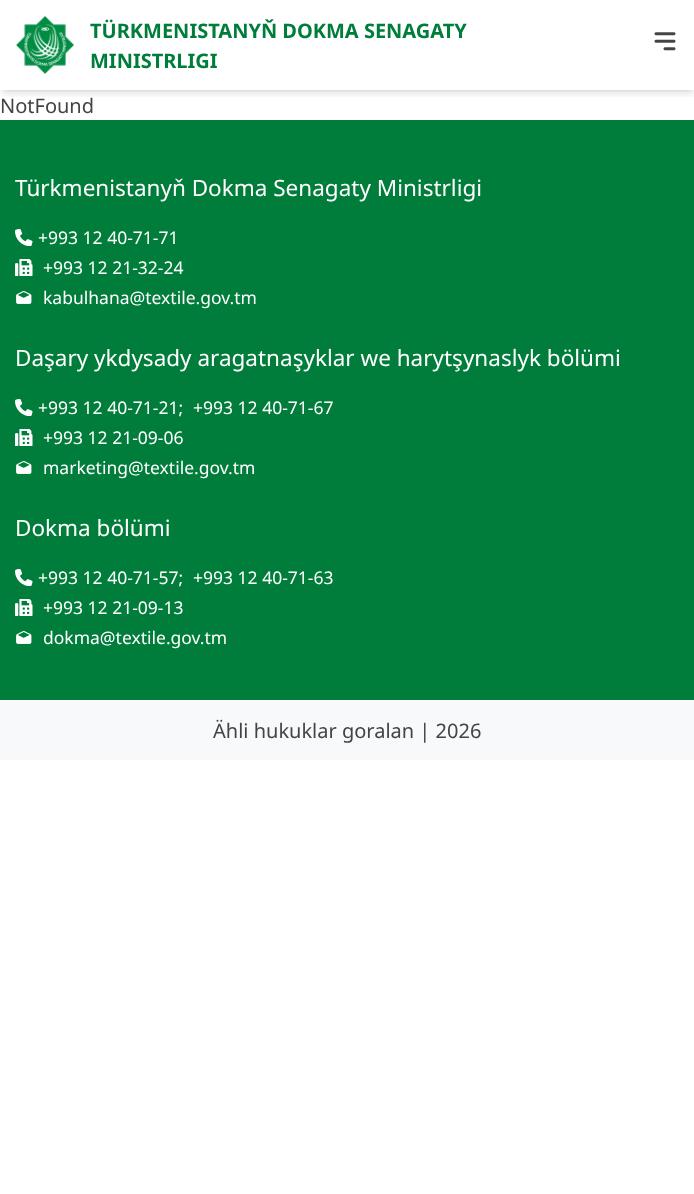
<?xml version="1.0" encoding="UTF-8"?>
<svg xmlns="http://www.w3.org/2000/svg" xmlns:xlink="http://www.w3.org/1999/xlink" width="694" height="1194">
  <defs>
    <clipPath id="clip1"><rect x="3" y="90" width="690" height="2" /></clipPath>
    <clipPath id="clip2"><rect x="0" y="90" width="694" height="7" /></clipPath>
  </defs>
  <rect width="100%" height="100%" fill="#ffffff" />
  <g clip-path="url(#clip1)">
    <rect x="3" y="5" width="690" height="85" fill="#000000" fill-opacity="0.1" filter="blur(2.5px)" />
  </g>
  <g clip-path="url(#clip2)">
    <rect x="1" y="6" width="693" height="88" fill="#000000" fill-opacity="0.1" filter="blur(4px)" />
  </g>
  <image x="16" y="16" width="58" height="58" xlink:href="image1.png" />
  <image x="654" y="32" width="22" height="19" xlink:href="image2.png" />
  <rect y="120" width="694" height="580" fill="#007d3b" />
  <image x="15" y="229" width="18" height="17" xlink:href="image3.png" />
  <image x="15" y="259" width="18" height="17" xlink:href="image4.png" />
  <image x="16" y="291" width="16" height="13" xlink:href="image5.png" />
  <image x="15" y="399" width="18" height="17" xlink:href="image3.png" />
  <image x="15" y="429" width="18" height="17" xlink:href="image4.png" />
  <image x="16" y="461" width="16" height="13" xlink:href="image5.png" />
  <image x="15" y="569" width="18" height="17" xlink:href="image3.png" />
  <image x="15" y="599" width="18" height="17" xlink:href="image4.png" />
  <image x="16" y="631" width="16" height="13" xlink:href="image5.png" />
  <rect y="700" width="694" height="60" fill="#f8f9fa" />
  <text x="90" y="38" style="font-family: Noto Sans; font-size: 20px; font-weight: bold; fill: #007d3b">TÜRKMENISTANYŇ DOKMA SENAGATY</text>
  <text x="90" y="68" style="font-family: Noto Sans; font-size: 20px; font-weight: bold; fill: #007d3b">MINISTRLIGI</text>
  <text x="0" y="113" style="font-family: Noto Sans; font-size: 20px; fill: #444444">NotFound</text>
  <text x="15" y="196" style="font-family: Noto Sans; font-size: 22.5px; fill: #ffffff">Türkmenistanyň Dokma Senagaty Ministrligi</text>
  <text x="38" y="244" style="font-family: Noto Sans; font-size: 17.5px; fill: #ffffff">+993 12 40-71-71</text>
  <text x="43" y="274" style="font-family: Noto Sans; font-size: 17.5px; fill: #ffffff">+993 12 21-32-24</text>
  <text x="43" y="304" style="font-family: Noto Sans; font-size: 17.5px; fill: #ffffff">kabulhana@textile.gov.tm</text>
  <text x="15" y="366" style="font-family: Noto Sans; font-size: 22.5px; fill: #ffffff">Daşary ykdysady aragatnaşyklar we harytşynaslyk bölümi</text>
  <text x="38" y="414" style="font-family: Noto Sans; font-size: 17.5px; fill: #ffffff">+993 12 40-71-21;</text>
  <text x="193" y="414" style="font-family: Noto Sans; font-size: 17.5px; fill: #ffffff">+993 12 40-71-67</text>
  <text x="43" y="444" style="font-family: Noto Sans; font-size: 17.5px; fill: #ffffff">+993 12 21-09-06</text>
  <text x="43" y="474" style="font-family: Noto Sans; font-size: 17.5px; fill: #ffffff">marketing@textile.gov.tm</text>
  <text x="15" y="536" style="font-family: Noto Sans; font-size: 22.5px; fill: #ffffff">Dokma bölümi</text>
  <text x="38" y="584" style="font-family: Noto Sans; font-size: 17.5px; fill: #ffffff">+993 12 40-71-57;</text>
  <text x="193" y="584" style="font-family: Noto Sans; font-size: 17.5px; fill: #ffffff">+993 12 40-71-63</text>
  <text x="43" y="614" style="font-family: Noto Sans; font-size: 17.5px; fill: #ffffff">+993 12 21-09-13</text>
  <text x="43" y="644" style="font-family: Noto Sans; font-size: 17.5px; fill: #ffffff">dokma@textile.gov.tm</text>
  <text x="213" y="738" style="font-family: Noto Sans; font-size: 20px; fill: #444444">Ähli hukuklar goralan | 2026</text>
</svg>
